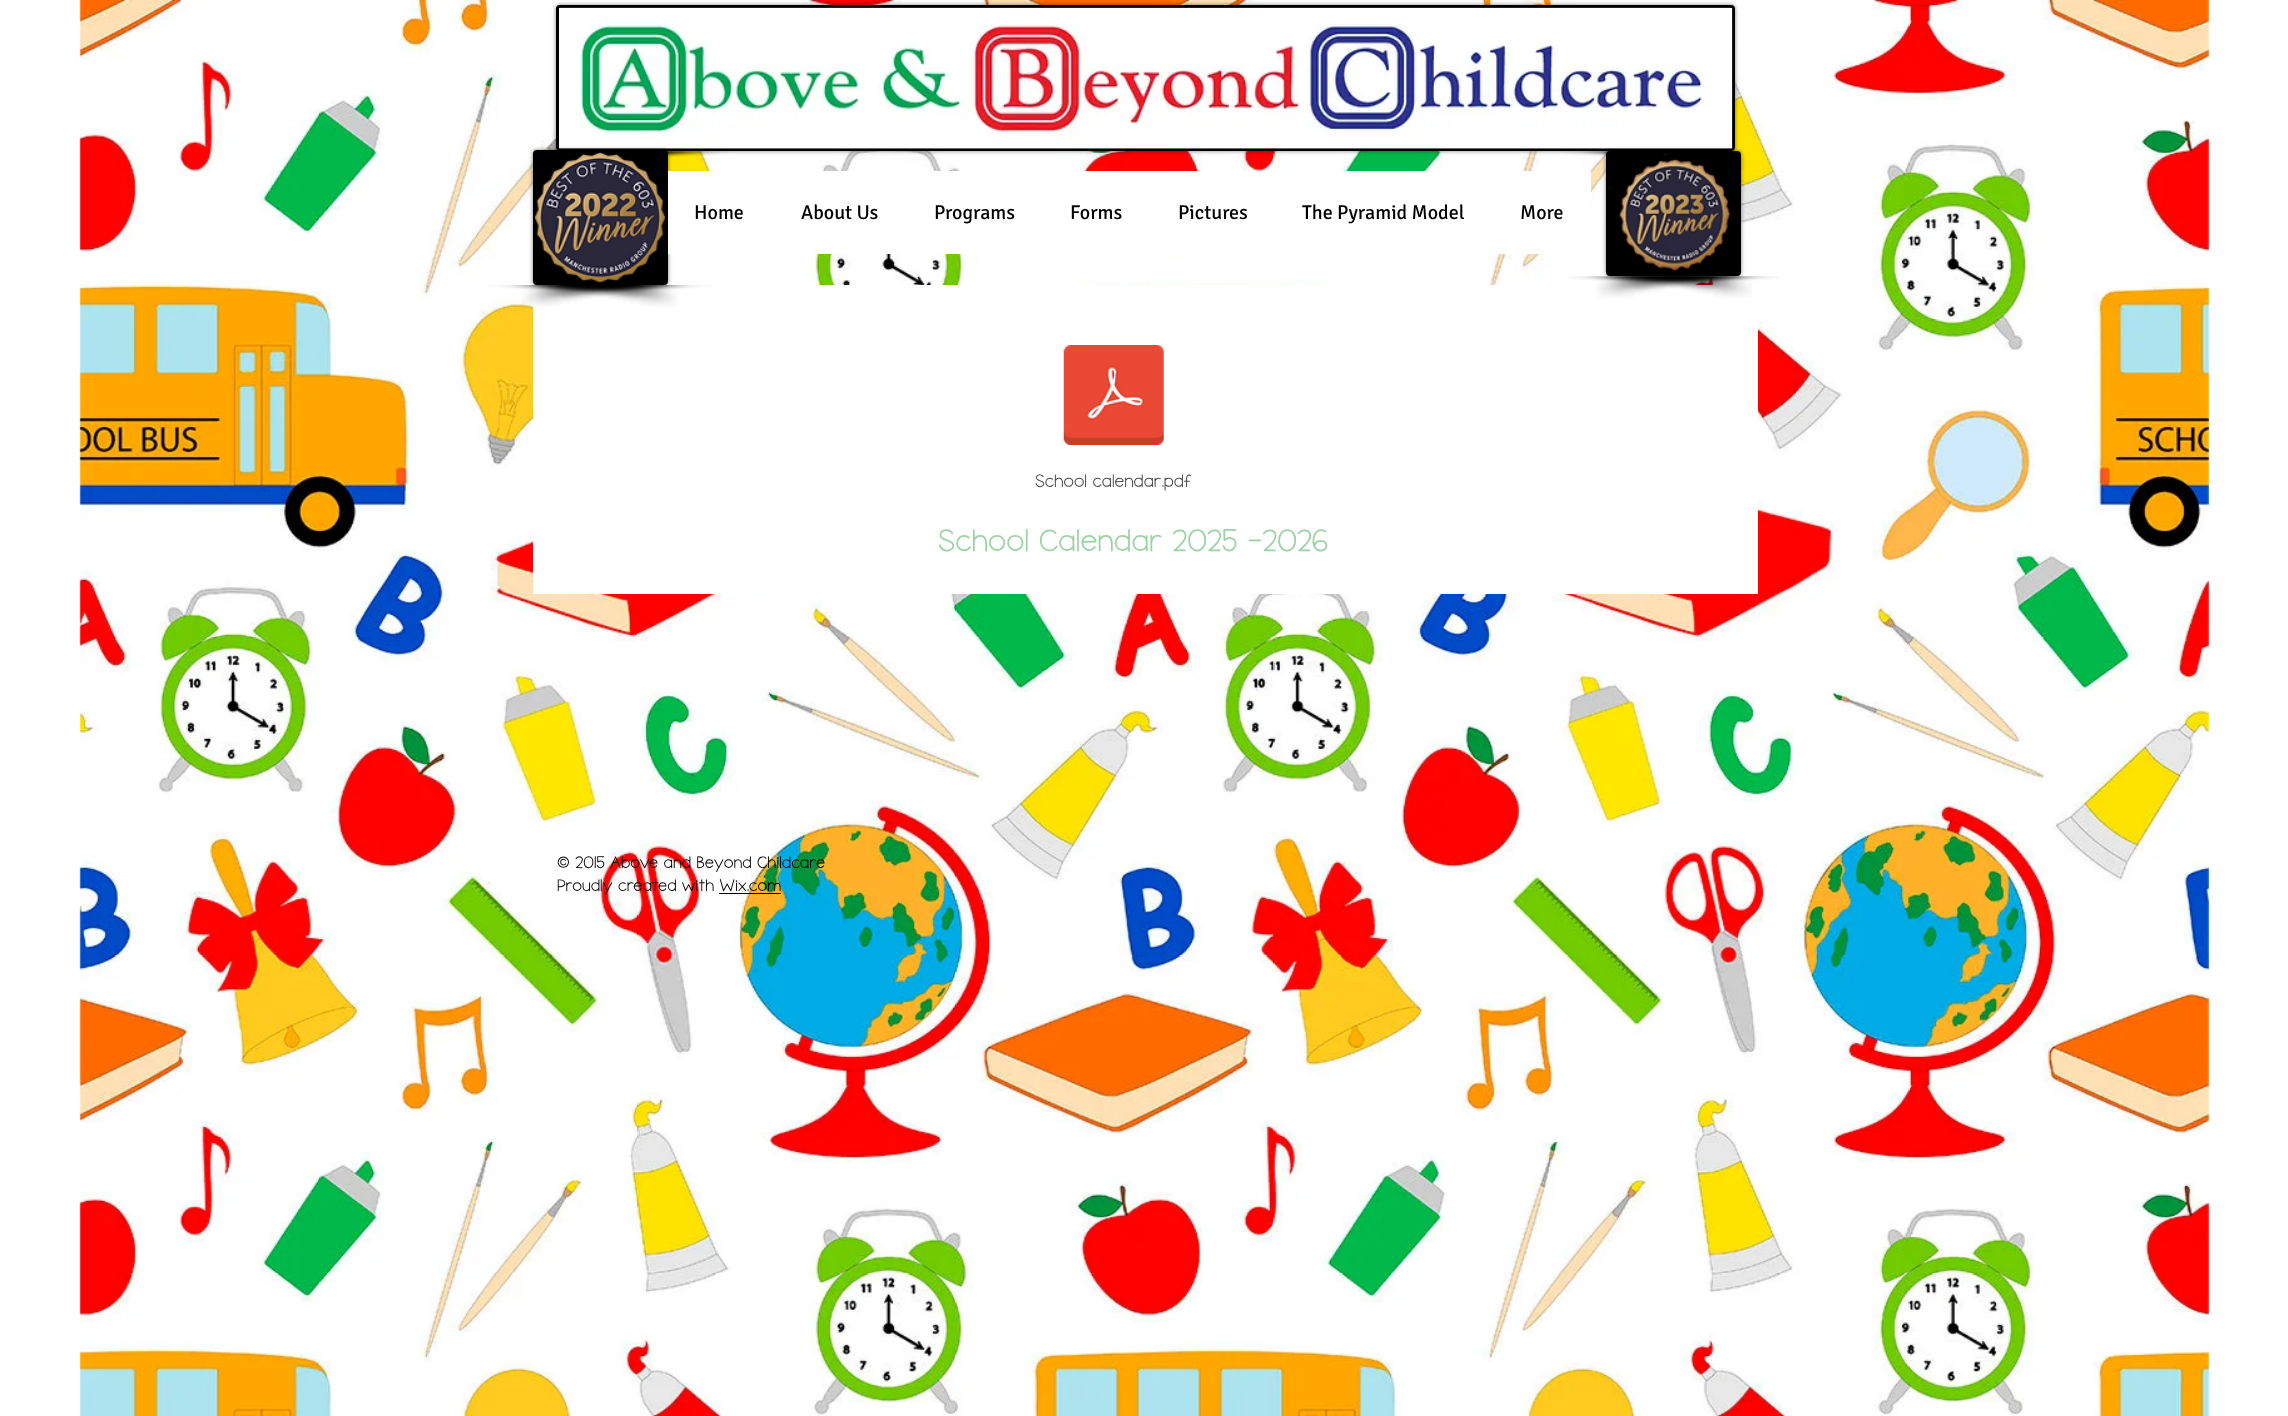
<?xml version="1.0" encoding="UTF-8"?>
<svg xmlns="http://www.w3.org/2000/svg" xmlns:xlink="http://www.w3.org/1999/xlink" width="2288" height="1416">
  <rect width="100%" height="100%" fill="#ffffff" />
  <image x="79" y="0" width="2131" height="1416" xlink:href="image1.png" />
  <rect x="556" y="5" width="1179" height="146" rx="4" fill="#000000" fill-opacity="0.5" filter="blur(2px)" />
  <rect x="557.5" y="6.5" width="1176" height="143" rx="2.5" fill="none" stroke="#000000" stroke-width="3" />
  <image x="559" y="7" width="1174" height="142" xlink:href="image2.png" />
  <image x="666" y="151" width="63" height="6" xlink:href="image3.png" />
  <image x="1562" y="151" width="184" height="19" xlink:href="image4.png" />
  <rect x="533" y="285" width="1225" height="309" fill="#ffffff" />
  <rect x="533" y="150" width="135" height="135" rx="4" fill="#000000" fill-opacity="0.5" filter="blur(2px)" />
  <rect x="534.5" y="151.5" width="132" height="132" rx="2.5" fill="#000000" stroke="#000000" stroke-width="3" />
  <image x="535" y="152" width="130" height="131" xlink:href="image5.png" />
  <image x="522" y="285" width="191" height="22" xlink:href="image7.png" />
  <image x="487" y="285" width="191" height="22" xlink:href="image6.png" />
  <rect x="668" y="171" width="923" height="83" fill="#ffffff" />
  <rect x="1606" y="151" width="135" height="125" rx="4" fill="#000000" fill-opacity="0.5" filter="blur(2px)" />
  <rect x="1607.5" y="152.5" width="132" height="122" rx="2.5" fill="#000000" stroke="#000000" stroke-width="3" />
  <image x="1609" y="154" width="122" height="117" xlink:href="image8.png" />
  <image x="1596" y="276" width="183" height="22" xlink:href="image10.png" />
  <image x="1568" y="276" width="184" height="22" xlink:href="image9.png" />
  <image x="1063" y="345" width="101" height="100" xlink:href="image11.png" />
  <rect x="719" y="893" width="62" height="1" fill="#000000" />
  <text x="694" y="219" style="font-family: Signika; font-size: 20px; fill: #000000">Home</text>
  <text x="801" y="219" style="font-family: Signika; font-size: 20px; fill: #000000">About Us</text>
  <text x="934" y="219" style="font-family: Signika; font-size: 20px; fill: #000000">Programs</text>
  <text x="1070" y="219" style="font-family: Signika; font-size: 20px; fill: #000000">Forms</text>
  <text x="1178" y="219" style="font-family: Signika; font-size: 20px; fill: #000000">Pictures</text>
  <text x="1302" y="219" style="font-family: Signika; font-size: 20px; fill: #000000">The Pyramid Model</text>
  <text x="1520" y="219" style="font-family: Signika; font-size: 20px; fill: #000000">More</text>
  <text x="1035" y="488" style="font-family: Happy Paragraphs; font-size: 20px; fill: #4a4a4a">School calendar.pdf</text>
  <text x="938" y="553" style="font-family: Happy Paragraphs; font-size: 35px; fill: #9cd3a5">School Calendar 2025 -2026</text>
  <text x="557" y="869" style="font-family: Happy Paragraphs; font-size: 18.75px; fill: #000000">© 2015 Above and Beyond Childcare</text>
  <text x="557" y="892" style="font-family: Happy Paragraphs; font-size: 18.75px; fill: #000000">Proudly created with Wix.com</text>
</svg>
